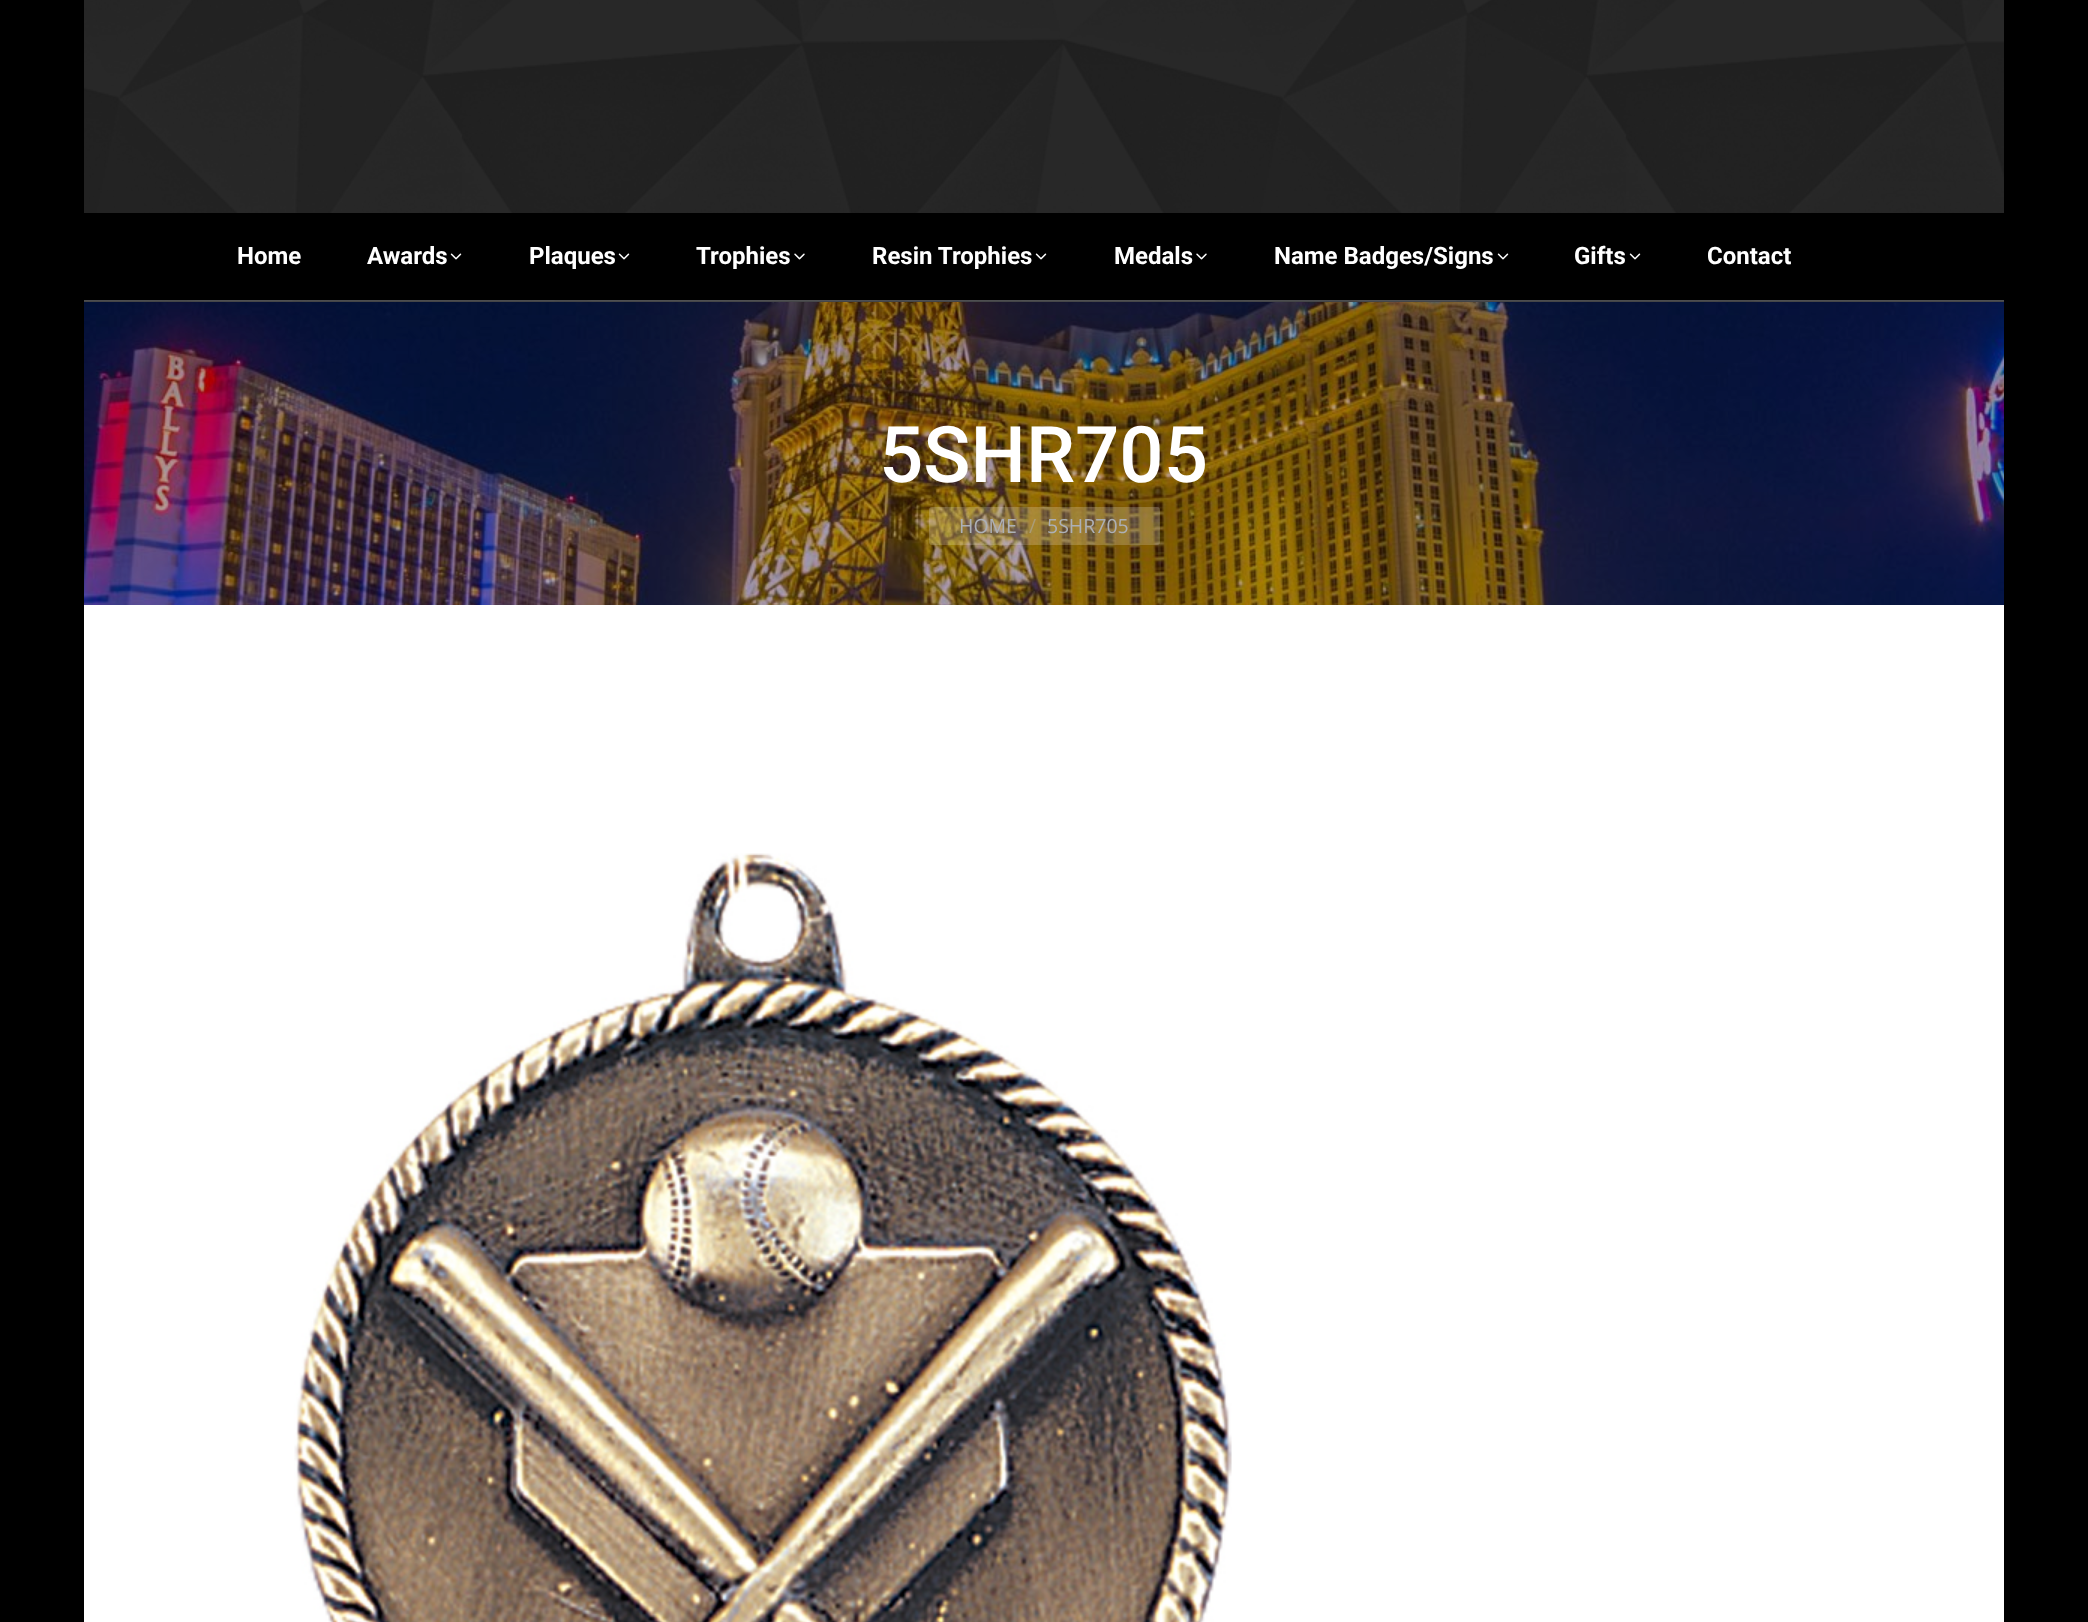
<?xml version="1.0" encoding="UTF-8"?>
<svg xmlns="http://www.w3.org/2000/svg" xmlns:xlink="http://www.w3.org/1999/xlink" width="2088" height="1622">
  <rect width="100%" height="100%" fill="#000000" />
  <rect x="84" y="605" width="1920" height="1017" fill="#ffffff" />
  <rect x="84" width="1920" height="302" fill="#0a0a0a" />
  <image x="84" y="0" width="1920" height="302" xlink:href="image1.png" />
  <rect x="84" y="300" width="1920" height="2" fill="#adb0b6" fill-opacity="0.3" />
  <rect x="84" y="213" width="1920" height="87" fill="#000000" />
  <image x="450" y="253" width="12" height="7" xlink:href="image2.png" />
  <image x="618" y="253" width="12" height="7" xlink:href="image2.png" />
  <image x="794" y="253" width="11" height="7" xlink:href="image3.png" />
  <image x="1035" y="253" width="12" height="7" xlink:href="image2.png" />
  <image x="1196" y="253" width="11" height="7" xlink:href="image3.png" />
  <image x="1497" y="253" width="12" height="7" xlink:href="image2.png" />
  <image x="1629" y="253" width="12" height="7" xlink:href="image2.png" />
  <image x="84" y="302" width="1920" height="303" xlink:href="image4.png" />
  <rect x="929" y="507" width="231" height="38" rx="3" fill="#ffffff" fill-opacity="0.2" />
  <image x="294" y="853" width="938" height="769" xlink:href="image5.png" />
  <text x="237" y="264" style="font-family: Roboto; font-size: 24px; font-weight: bold; fill: #ffffff">Home</text>
  <text x="367" y="264" style="font-family: Roboto; font-size: 24px; font-weight: bold; fill: #ffffff">Awards</text>
  <text x="529" y="264" style="font-family: Roboto; font-size: 24px; font-weight: bold; fill: #ffffff">Plaques</text>
  <text x="696" y="264" style="font-family: Roboto; font-size: 24px; font-weight: bold; fill: #ffffff">Trophies</text>
  <text x="872" y="264" style="font-family: Roboto; font-size: 24px; font-weight: bold; fill: #ffffff">Resin Trophies</text>
  <text x="1114" y="264" style="font-family: Roboto; font-size: 24px; font-weight: bold; fill: #ffffff">Medals</text>
  <text x="1274" y="264" style="font-family: Roboto; font-size: 24px; font-weight: bold; fill: #ffffff">Name Badges/Signs</text>
  <text x="1574" y="264" style="font-family: Roboto; font-size: 24px; font-weight: bold; fill: #ffffff">Gifts</text>
  <text x="1707" y="264" style="font-family: Roboto; font-size: 24px; font-weight: bold; fill: #ffffff">Contact</text>
  <text x="879" y="482" style="font-family: Roboto; font-size: 78px; font-weight: 500; fill: #ffffff">5SHR705</text>
  <text x="959" y="533" style="font-family: Open Sans; font-size: 19.5px; fill: #adb0b6">HOME</text>
  <text x="1029" y="533" style="font-family: Open Sans; font-size: 19.5px; fill: #aa9c77">/</text>
  <text x="1047" y="533" style="font-family: Open Sans; font-size: 19.5px; fill: #adb0b6">5SHR705</text>
</svg>
